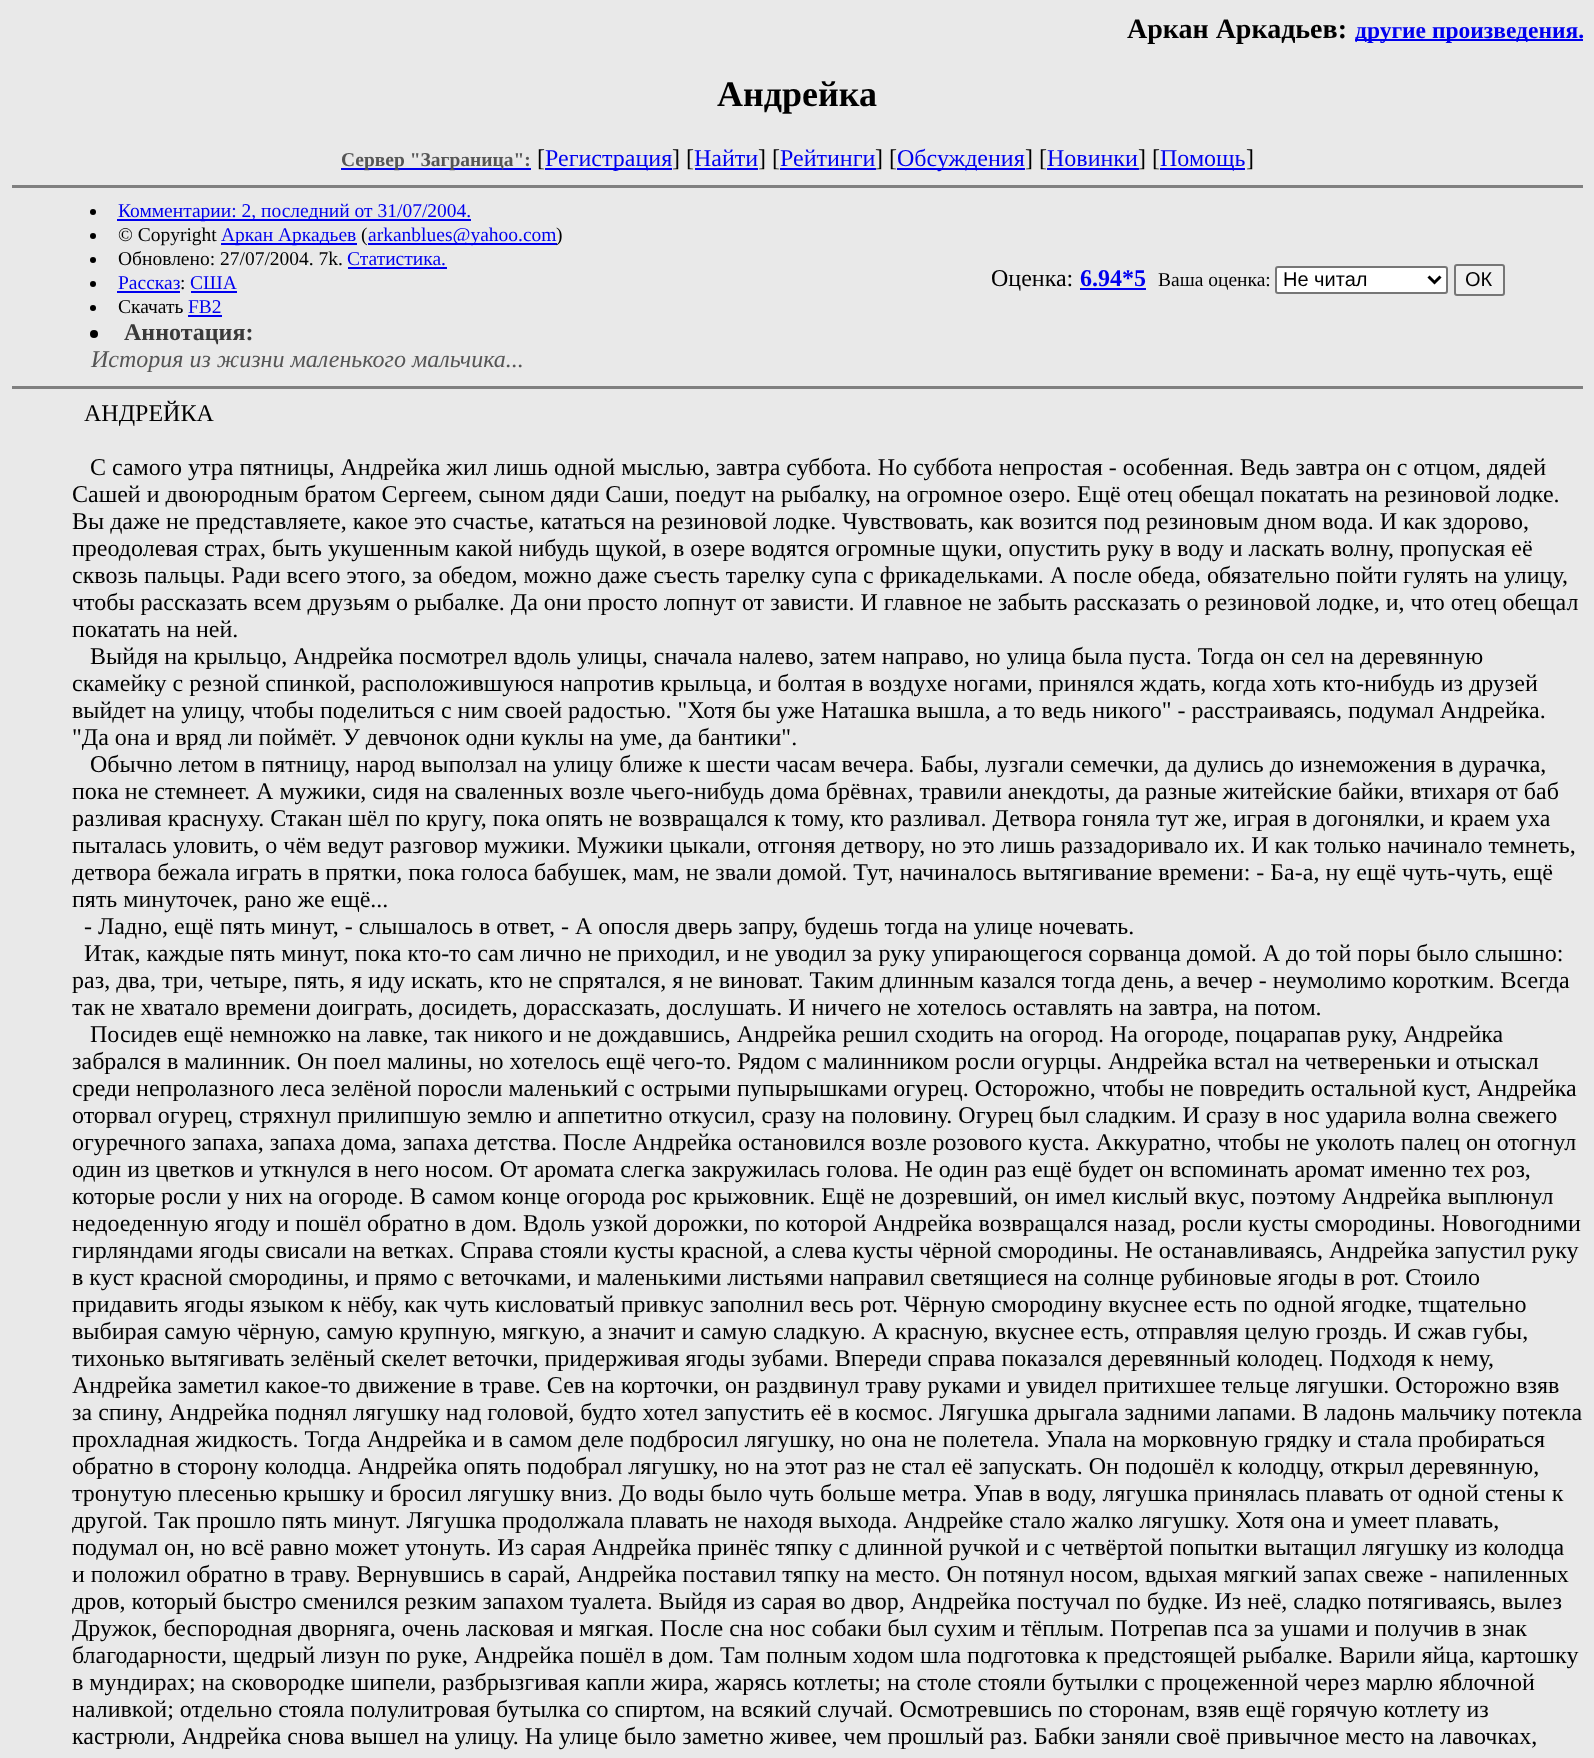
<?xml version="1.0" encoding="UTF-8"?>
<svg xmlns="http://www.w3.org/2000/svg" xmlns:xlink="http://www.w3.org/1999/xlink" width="1594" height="1758">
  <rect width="100%" height="100%" fill="#e9e9e9" />
  <rect x="1355" y="39" width="228" height="2" fill="#0000ee" />
  <rect x="341" y="168" width="190" height="2" fill="#0000ee" />
  <rect x="545" y="168" width="127" height="2" fill="#0000ee" />
  <rect x="695" y="168" width="63" height="2" fill="#0000ee" />
  <rect x="780" y="168" width="96" height="2" fill="#0000ee" />
  <rect x="897" y="168" width="128" height="2" fill="#0000ee" />
  <rect x="1047" y="168" width="92" height="2" fill="#0000ee" />
  <rect x="1160" y="168" width="85" height="2" fill="#0000ee" />
  <rect x="12" y="185" width="1571" height="3" fill="#808080" />
  <circle cx="93" cy="212" r="3" fill="#000000" />
  <rect x="117" y="219" width="354" height="2" fill="#0000ee" />
  <circle cx="93" cy="236" r="3" fill="#000000" />
  <rect x="221" y="243" width="136" height="2" fill="#0000ee" />
  <rect x="368" y="243" width="189" height="2" fill="#0000ee" />
  <circle cx="93" cy="260" r="3" fill="#000000" />
  <rect x="348" y="267" width="99" height="2" fill="#0000ee" />
  <circle cx="93" cy="284" r="3" fill="#000000" />
  <rect x="117" y="291" width="63" height="2" fill="#0000ee" />
  <rect x="191" y="291" width="46" height="2" fill="#0000ee" />
  <circle cx="93" cy="308" r="3" fill="#000000" />
  <rect x="188" y="315" width="34" height="2" fill="#0000ee" />
  <rect x="1080" y="288" width="66" height="2" fill="#0000ee" />
  <rect x="1276" y="267" width="171" height="26" rx="2" fill="#ffffff" stroke="#767676" stroke-width="2" />
  <path d="M 1428.5 276.5 l 6 6 l 6 -6" fill="none" stroke="#000000" stroke-width="3" />
  <rect x="1455" y="265" width="49" height="30" rx="2" fill="#efefef" stroke="#767676" stroke-width="2" />
  <circle cx="94" cy="334" r="4" fill="#000000" />
  <rect x="12" y="386" width="1571" height="3" fill="#808080" />
  <text x="1127" y="38" style="font-family: Liberation Serif; font-size: 28px; font-weight: bold; fill: #000000">Аркан Аркадьев:</text>
  <text x="1355" y="38" style="font-family: Liberation Serif; font-size: 23.5px; font-weight: bold; fill: #0000ee">другие произведения.</text>
  <text x="717" y="106" style="font-family: Liberation Serif; font-size: 36px; font-weight: bold; fill: #000000">Андрейка</text>
  <text x="341" y="166" style="font-family: Liberation Serif; font-size: 19.5px; font-weight: bold; fill: #555555">Сервер "Заграница":</text>
  <text x="537" y="166" style="font-family: Liberation Serif; font-size: 24px; fill: #000000">[</text>
  <text x="545" y="166" style="font-family: Liberation Serif; font-size: 24px; fill: #0000ee">Регистрация</text>
  <text x="672" y="166" style="font-family: Liberation Serif; font-size: 24px; fill: #000000">] [</text>
  <text x="694" y="166" style="font-family: Liberation Serif; font-size: 24px; fill: #0000ee">Найти</text>
  <text x="758" y="166" style="font-family: Liberation Serif; font-size: 24px; fill: #000000">] [</text>
  <text x="780" y="166" style="font-family: Liberation Serif; font-size: 24px; fill: #0000ee">Рейтинги</text>
  <text x="875" y="166" style="font-family: Liberation Serif; font-size: 24px; fill: #000000">] [</text>
  <text x="897" y="166" style="font-family: Liberation Serif; font-size: 24px; fill: #0000ee">Обсуждения</text>
  <text x="1025" y="166" style="font-family: Liberation Serif; font-size: 24px; fill: #000000">] [</text>
  <text x="1047" y="166" style="font-family: Liberation Serif; font-size: 24px; fill: #0000ee">Новинки</text>
  <text x="1138" y="166" style="font-family: Liberation Serif; font-size: 24px; fill: #000000">] [</text>
  <text x="1160" y="166" style="font-family: Liberation Serif; font-size: 24px; fill: #0000ee">Помощь</text>
  <text x="1246" y="166" style="font-family: Liberation Serif; font-size: 24px; fill: #000000">]</text>
  <text x="118" y="217" style="font-family: Liberation Serif; font-size: 19.5px; fill: #0000ee">Комментарии: 2, последний от 31/07/2004.</text>
  <text x="118" y="241" style="font-family: Liberation Serif; font-size: 19.5px; fill: #000000">© Copyright</text>
  <text x="221" y="241" style="font-family: Liberation Serif; font-size: 19.5px; fill: #0000ee">Аркан Аркадьев</text>
  <text x="361" y="241" style="font-family: Liberation Serif; font-size: 19.5px; fill: #000000">(</text>
  <text x="368" y="241" style="font-family: Liberation Serif; font-size: 19.5px; fill: #0000ee">arkanblues@yahoo.com</text>
  <text x="556" y="241" style="font-family: Liberation Serif; font-size: 19.5px; fill: #000000">)</text>
  <text x="118" y="265" style="font-family: Liberation Serif; font-size: 19.5px; fill: #000000">Обновлено: 27/07/2004. 7k.</text>
  <text x="347" y="265" style="font-family: Liberation Serif; font-size: 19.5px; fill: #0000ee">Статистика.</text>
  <text x="118" y="289" style="font-family: Liberation Serif; font-size: 19.5px; fill: #0000ee">Рассказ</text>
  <text x="180" y="289" style="font-family: Liberation Serif; font-size: 19.5px; fill: #000000">:</text>
  <text x="190" y="289" style="font-family: Liberation Serif; font-size: 19.5px; fill: #0000ee">США</text>
  <text x="118" y="313" style="font-family: Liberation Serif; font-size: 19.5px; fill: #000000">Скачать</text>
  <text x="188" y="313" style="font-family: Liberation Serif; font-size: 19.5px; fill: #0000ee">FB2</text>
  <text x="991" y="286" style="font-family: Liberation Serif; font-size: 24px; fill: #000000">Оценка:</text>
  <text x="1080" y="286" style="font-family: Liberation Serif; font-size: 24px; font-weight: bold; fill: #0000ee">6.94*5</text>
  <text x="1158" y="286" style="font-family: Liberation Serif; font-size: 19.5px; fill: #000000">Ваша оценка:</text>
  <text x="1283" y="286" style="font-family: Liberation Sans; font-size: 20px; fill: #000000">Не читал</text>
  <text x="1465" y="286" style="font-family: Liberation Sans; font-size: 20px; fill: #000000">ОК</text>
  <text x="124" y="340" style="font-family: Liberation Serif; font-size: 24px; font-weight: bold; fill: #393939">Аннотация:</text>
  <text x="91" y="367" style="font-family: Liberation Serif; font-size: 24px; font-style: italic; fill: #555555">История из жизни маленького мальчика...</text>
  <text x="84" y="421" style="font-family: Liberation Serif; font-size: 24px; fill: #000000">АНДРЕЙКА</text>
  <text x="90" y="475" style="font-family: Liberation Serif; font-size: 24px; fill: #000000">С самого утра пятницы, Андрейка жил лишь одной мыслью, завтра суббота. Но суббота непростая - особенная. Ведь завтра он с отцом, дядей</text>
  <text x="72" y="502" style="font-family: Liberation Serif; font-size: 24px; fill: #000000">Сашей и двоюродным братом Сергеем, сыном дяди Саши, поедут на рыбалку, на огромное озеро. Ещё отец обещал покатать на резиновой лодке.</text>
  <text x="72" y="529" style="font-family: Liberation Serif; font-size: 24px; fill: #000000">Вы даже не представляете, какое это счастье, кататься на резиновой лодке. Чувствовать, как возится под резиновым дном вода. И как здорово,</text>
  <text x="72" y="556" style="font-family: Liberation Serif; font-size: 24px; fill: #000000">преодолевая страх, быть укушенным какой нибудь щукой, в озере водятся огромные щуки, опустить руку в воду и ласкать волну, пропуская её</text>
  <text x="72" y="583" style="font-family: Liberation Serif; font-size: 24px; fill: #000000">сквозь пальцы. Ради всего этого, за обедом, можно даже съесть тарелку супа с фрикадельками. А после обеда, обязательно пойти гулять на улицу,</text>
  <text x="72" y="610" style="font-family: Liberation Serif; font-size: 24px; fill: #000000">чтобы рассказать всем друзьям о рыбалке. Да они просто лопнут от зависти. И главное не забыть рассказать о резиновой лодке, и, что отец обещал</text>
  <text x="72" y="637" style="font-family: Liberation Serif; font-size: 24px; fill: #000000">покатать на ней.</text>
  <text x="90" y="664" style="font-family: Liberation Serif; font-size: 24px; fill: #000000">Выйдя на крыльцо, Андрейка посмотрел вдоль улицы, сначала налево, затем направо, но улица была пуста. Тогда он сел на деревянную</text>
  <text x="72" y="691" style="font-family: Liberation Serif; font-size: 24px; fill: #000000">скамейку с резной спинкой, расположившуюся напротив крыльца, и болтая в воздухе ногами, принялся ждать, когда хоть кто-нибудь из друзей</text>
  <text x="72" y="718" style="font-family: Liberation Serif; font-size: 24px; fill: #000000">выйдет на улицу, чтобы поделиться с ним своей радостью. "Хотя бы уже Наташка вышла, а то ведь никого" - расстраиваясь, подумал Андрейка.</text>
  <text x="72" y="745" style="font-family: Liberation Serif; font-size: 24px; fill: #000000">"Да она и вряд ли поймёт. У девчонок одни куклы на уме, да бантики".</text>
  <text x="90" y="772" style="font-family: Liberation Serif; font-size: 24px; fill: #000000">Обычно летом в пятницу, народ выползал на улицу ближе к шести часам вечера. Бабы, лузгали семечки, да дулись до изнеможения в дурaчка,</text>
  <text x="72" y="799" style="font-family: Liberation Serif; font-size: 24px; fill: #000000">пока не стемнеет. А мужики, сидя на сваленных возле чьего-нибудь дома брёвнах, травили анекдоты, да разные житейские байки, втихаря от баб</text>
  <text x="72" y="826" style="font-family: Liberation Serif; font-size: 24px; fill: #000000">разливая краснуху. Стакан шёл по кругу, пока опять не возвращался к тому, кто разливал. Детвора гоняла тут же, играя в догонялки, и краем уха</text>
  <text x="72" y="853" style="font-family: Liberation Serif; font-size: 24px; fill: #000000">пыталась уловить, о чём ведут разговор мужики. Мужики цыкали, отгоняя детвору, но это лишь раззадоривало их. И как только начинало темнеть,</text>
  <text x="72" y="880" style="font-family: Liberation Serif; font-size: 24px; fill: #000000">детвора бежала играть в прятки, пока голоса бабушек, мам, не звали домой. Тут, начиналось вытягивание времени: - Ба-а, ну ещё чуть-чуть, ещё</text>
  <text x="72" y="907" style="font-family: Liberation Serif; font-size: 24px; fill: #000000">пять минуточек, рано же ещё...</text>
  <text x="84" y="934" style="font-family: Liberation Serif; font-size: 24px; fill: #000000">- Ладно, ещё пять минут, - слышалось в ответ, - А опосля дверь запру, будешь тогда на улице ночевать.</text>
  <text x="84" y="961" style="font-family: Liberation Serif; font-size: 24px; fill: #000000">Итак, каждые пять минут, пока кто-то сам лично не приходил, и не уводил за руку упирающегося сорванца домой. А до той поры было слышно:</text>
  <text x="72" y="988" style="font-family: Liberation Serif; font-size: 24px; fill: #000000">раз, два, три, четыре, пять, я иду искать, кто не спрятался, я не виноват. Таким длинным казался тогда день, а вечер - неумолимо коротким. Всегда</text>
  <text x="72" y="1015" style="font-family: Liberation Serif; font-size: 24px; fill: #000000">так не хватало времени доиграть, досидеть, дорассказать, дослушать. И ничего не хотелось оставлять на завтра, на потом.</text>
  <text x="90" y="1042" style="font-family: Liberation Serif; font-size: 24px; fill: #000000">Посидев ещё немножко на лавке, так никого и не дождавшись, Андрейка решил сходить на огород. На огороде, поцарапав руку, Андрейка</text>
  <text x="72" y="1069" style="font-family: Liberation Serif; font-size: 24px; fill: #000000">забрался в малинник. Он поел малины, но хотелось ещё чего-то. Рядом с малинником росли огурцы. Андрейка встал на четвереньки и отыскал</text>
  <text x="72" y="1096" style="font-family: Liberation Serif; font-size: 24px; fill: #000000">среди непролазного леса зелёной поросли маленький с острыми пупырышками огурец. Осторожно, чтобы не повредить остальной куст, Андрейка</text>
  <text x="72" y="1123" style="font-family: Liberation Serif; font-size: 24px; fill: #000000">оторвал огурец, стряхнул прилипшую землю и аппетитно откусил, сразу на половину. Огурец был сладким. И сразу в нос ударила волна свежего</text>
  <text x="72" y="1150" style="font-family: Liberation Serif; font-size: 24px; fill: #000000">огуречного запаха, запаха дома, запаха детства. После Андрейка остановился возле розового куста. Аккуратно, чтобы не уколоть палец он отогнул</text>
  <text x="72" y="1177" style="font-family: Liberation Serif; font-size: 24px; fill: #000000">один из цветков и уткнулся в него носом. От аромата слегка закружилась голова. Не один раз ещё будет он вспоминать аромат именно тех роз,</text>
  <text x="72" y="1204" style="font-family: Liberation Serif; font-size: 24px; fill: #000000">которые росли у них на огороде. В самом конце огорода рос крыжовник. Ещё не дозревший, он имел кислый вкус, поэтому Андрейка выплюнул</text>
  <text x="72" y="1231" style="font-family: Liberation Serif; font-size: 24px; fill: #000000">недоеденную ягоду и пошёл обратно в дом. Вдоль узкой дорожки, по которой Андрейка возвращался назад, росли кусты смородины. Новогодними</text>
  <text x="72" y="1258" style="font-family: Liberation Serif; font-size: 24px; fill: #000000">гирляндами ягоды свисали на ветках. Справа стояли кусты красной, а слева кусты чёрной смородины. Не останавливаясь, Андрейка запустил руку</text>
  <text x="72" y="1285" style="font-family: Liberation Serif; font-size: 24px; fill: #000000">в куст красной смородины, и прямо с веточками, и маленькими листьями направил светящиеся на солнце рубиновые ягоды в рот. Стоило</text>
  <text x="72" y="1312" style="font-family: Liberation Serif; font-size: 24px; fill: #000000">придавить ягоды языком к нёбу, как чуть кисловатый привкус заполнил весь рот. Чёрную смородину вкуснее есть по одной ягодке, тщательно</text>
  <text x="72" y="1339" style="font-family: Liberation Serif; font-size: 24px; fill: #000000">выбирая самую чёрную, самую крупную, мягкую, а значит и самую сладкую. А красную, вкуснее есть, отправляя целую гроздь. И сжав губы,</text>
  <text x="72" y="1366" style="font-family: Liberation Serif; font-size: 24px; fill: #000000">тихонько вытягивать зелёный скелет веточки, придерживая ягоды зубами. Впереди справа показался деревянный колодец. Подходя к нему,</text>
  <text x="72" y="1393" style="font-family: Liberation Serif; font-size: 24px; fill: #000000">Андрейка заметил какое-то движение в траве. Сев на корточки, он раздвинул траву руками и увидел притихшее тельце лягушки. Осторожно взяв</text>
  <text x="72" y="1420" style="font-family: Liberation Serif; font-size: 24px; fill: #000000">за спину, Андрейка поднял лягушку над головой, будто хотел запустить её в космос. Лягушка дрыгала задними лапами. В ладонь мальчику потекла</text>
  <text x="72" y="1447" style="font-family: Liberation Serif; font-size: 24px; fill: #000000">прохладная жидкость. Тогда Андрейка и в самом деле подбросил лягушку, но она не полетела. Упала на морковную грядку и стала пробираться</text>
  <text x="72" y="1474" style="font-family: Liberation Serif; font-size: 24px; fill: #000000">обратно в сторону колодца. Андрейка опять подобрал лягушку, но на этот раз не стал её запускать. Он подошёл к колодцу, открыл деревянную,</text>
  <text x="72" y="1501" style="font-family: Liberation Serif; font-size: 24px; fill: #000000">тронутую плесенью крышку и бросил лягушку вниз. До воды было чуть больше метра. Упав в воду, лягушка принялась плавать от одной стены к</text>
  <text x="72" y="1528" style="font-family: Liberation Serif; font-size: 24px; fill: #000000">другой. Так прошло пять минут. Лягушка продолжала плавать не находя выхода. Андрейке стало жалко лягушку. Хотя она и умеет плавать,</text>
  <text x="72" y="1555" style="font-family: Liberation Serif; font-size: 24px; fill: #000000">подумал он, но всё равно может утонуть. Из сарая Андрейка принёс тяпку с длинной ручкой и с четвёртой попытки вытащил лягушку из колодца</text>
  <text x="72" y="1582" style="font-family: Liberation Serif; font-size: 24px; fill: #000000">и положил обратно в траву. Вернувшись в сарай, Андрейка поставил тяпку на место. Он потянул носом, вдыхая мягкий запах свеже - напиленных</text>
  <text x="72" y="1609" style="font-family: Liberation Serif; font-size: 24px; fill: #000000">дров, который быстро сменился резким запахом туалета. Выйдя из сарая во двор, Андрейка постучал по будке. Из неё, сладко потягиваясь, вылез</text>
  <text x="72" y="1636" style="font-family: Liberation Serif; font-size: 24px; fill: #000000">Дружок, беспородная дворняга, очень ласковая и мягкая. После сна нос собаки был сухим и тёплым. Потрепав пса за ушами и получив в знак</text>
  <text x="72" y="1663" style="font-family: Liberation Serif; font-size: 24px; fill: #000000">благодарности, щедрый лизун по руке, Андрейка пошёл в дом. Там полным ходом шла подготовка к предстоящей рыбалке. Варили яйца, картошку</text>
  <text x="72" y="1690" style="font-family: Liberation Serif; font-size: 24px; fill: #000000">в мундирах; на сковородке шипели, разбрызгивая капли жира, жарясь котлеты; на столе стояли бутылки с процеженной через марлю яблочной</text>
  <text x="72" y="1717" style="font-family: Liberation Serif; font-size: 24px; fill: #000000">наливкой; отдельно стояла полулитровая бутылка со спиртом, на всякий случай. Осмотревшись по сторонам, взяв ещё горячую котлету из</text>
  <text x="72" y="1744" style="font-family: Liberation Serif; font-size: 24px; fill: #000000">кастрюли, Андрейка снова вышел на улицу. На улице было заметно живее, чем прошлый раз. Бабки заняли своё привычное место на лавочках,</text>
</svg>
